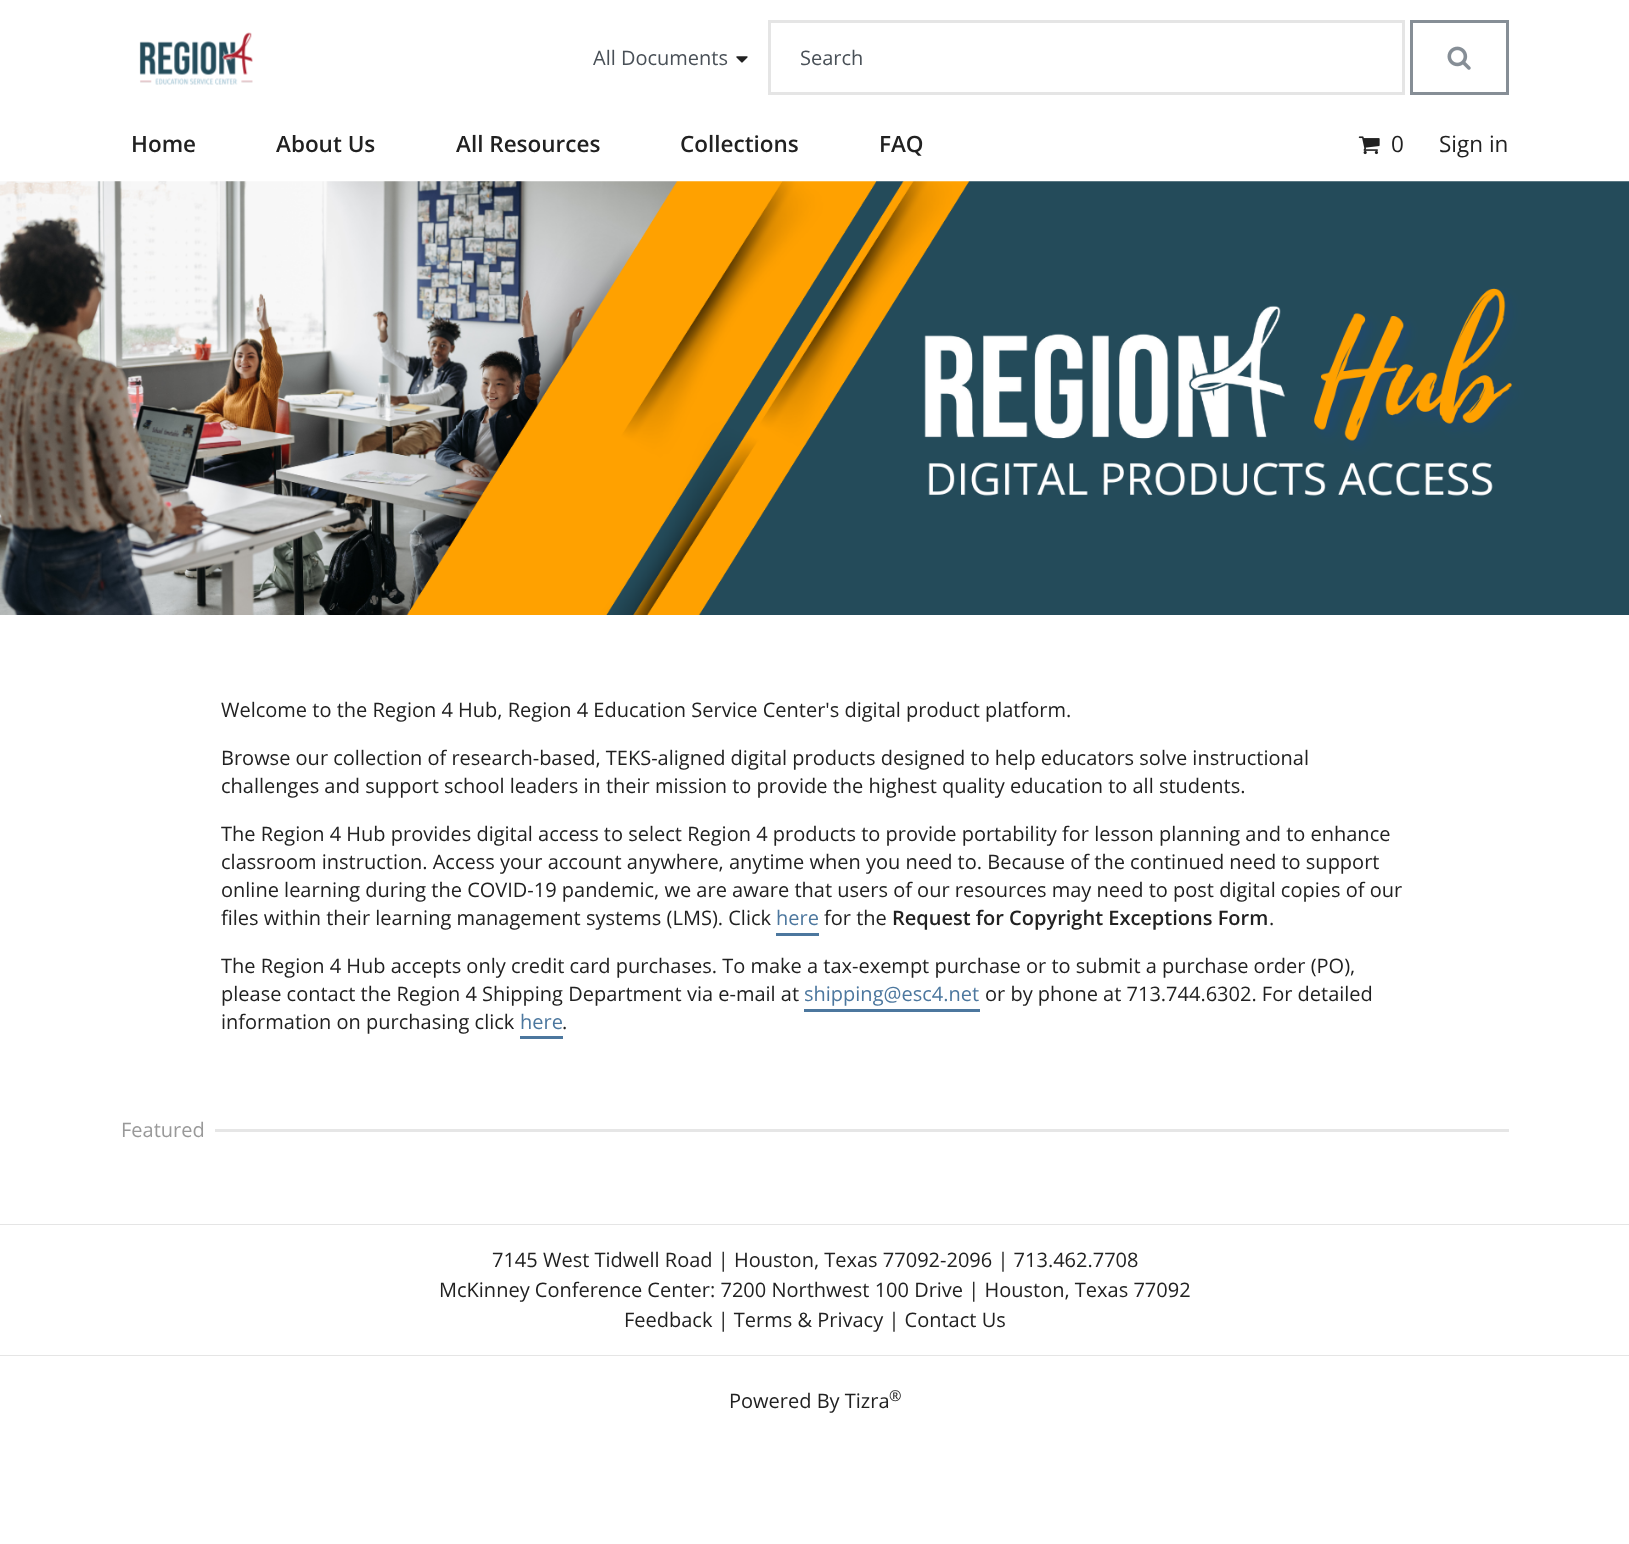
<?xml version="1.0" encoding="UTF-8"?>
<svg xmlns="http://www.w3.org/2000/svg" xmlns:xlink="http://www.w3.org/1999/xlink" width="1629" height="1544">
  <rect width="100%" height="100%" fill="#ffffff" />
  <image x="139" y="32" width="114" height="53" xlink:href="image1.png" />
  <image x="736" y="56" width="12" height="7" xlink:href="image2.png" />
  <rect x="769.5" y="21.5" width="634" height="72" fill="none" stroke="#e5e5e5" stroke-width="3" />
  <rect x="1411.5" y="21.5" width="96" height="72" fill="none" stroke="#868e96" stroke-width="3" />
  <image x="1447" y="46" width="24" height="24" xlink:href="image3.png" />
  <image x="1358" y="136" width="22" height="19" xlink:href="image4.png" />
  <image x="0" y="181" width="1629" height="434" xlink:href="image5.png" />
  <rect x="776" y="933" width="43" height="3" fill="#4c779e" />
  <rect x="804" y="1009" width="176" height="3" fill="#4c779e" />
  <rect x="520" y="1036" width="43" height="3" fill="#4c779e" />
  <rect x="215" y="1129" width="1294" height="3" fill="#e6e6e6" />
  <rect y="1224" width="1629" height="1" fill="#e5e5e5" />
  <rect y="1355" width="1629" height="1" fill="#e5e5e5" />
  <text x="593" y="65" style="font-family: Open Sans; font-size: 20px; fill: #495057">All Documents</text>
  <text x="800" y="65" style="font-family: Open Sans; font-size: 20px; fill: #495057">Search</text>
  <text x="131" y="152" style="font-family: Open Sans; font-size: 22.5px; font-weight: 600; fill: #212121">Home</text>
  <text x="276" y="152" style="font-family: Open Sans; font-size: 22.5px; font-weight: 600; fill: #212121">About Us</text>
  <text x="456" y="152" style="font-family: Open Sans; font-size: 22.5px; font-weight: 600; fill: #212121">All Resources</text>
  <text x="680" y="152" style="font-family: Open Sans; font-size: 22.5px; font-weight: 600; fill: #212121">Collections</text>
  <text x="879" y="152" style="font-family: Open Sans; font-size: 22.5px; font-weight: 600; fill: #212121">FAQ</text>
  <text x="1391" y="152" style="font-family: Open Sans; font-size: 22.5px; fill: #212121">0</text>
  <text x="1439" y="152" style="font-family: Open Sans; font-size: 22.5px; fill: #212121">Sign in</text>
  <text x="221" y="717" style="font-family: Open Sans; font-size: 20px; fill: #212121">Welcome to the Region 4 Hub, Region 4 Education Service Center's digital product platform.</text>
  <text x="221" y="765" style="font-family: Open Sans; font-size: 20px; fill: #212121">Browse our collection of research-based, TEKS-aligned digital products designed to help educators solve instructional</text>
  <text x="221" y="793" style="font-family: Open Sans; font-size: 20px; fill: #212121">challenges and support school leaders in their mission to provide the highest quality education to all students.</text>
  <text x="221" y="841" style="font-family: Open Sans; font-size: 20px; fill: #212121">The Region 4 Hub provides digital access to select Region 4 products to provide portability for lesson planning and to enhance</text>
  <text x="221" y="869" style="font-family: Open Sans; font-size: 20px; fill: #212121">classroom instruction. Access your account anywhere, anytime when you need to. Because of the continued need to support</text>
  <text x="221" y="897" style="font-family: Open Sans; font-size: 20px; fill: #212121">online learning during the COVID-19 pandemic, we are aware that users of our resources may need to post digital copies of our</text>
  <text x="221" y="925" style="font-family: Open Sans; font-size: 20px; fill: #212121">files within their learning management systems (LMS). Click</text>
  <text x="776" y="925" style="font-family: Open Sans; font-size: 20px; fill: #4c779e">here</text>
  <text x="824" y="925" style="font-family: Open Sans; font-size: 20px; fill: #212121">for the</text>
  <text x="892" y="925" style="font-family: Open Sans; font-size: 20px; font-weight: 600; fill: #212121">Request for Copyright Exceptions Form</text>
  <text x="1269" y="925" style="font-family: Open Sans; font-size: 20px; fill: #212121">.</text>
  <text x="221" y="973" style="font-family: Open Sans; font-size: 20px; fill: #212121">The Region 4 Hub accepts only credit card purchases. To make a tax-exempt purchase or to submit a purchase order (PO),</text>
  <text x="221" y="1001" style="font-family: Open Sans; font-size: 20px; fill: #212121">please contact the Region 4 Shipping Department via e-mail at</text>
  <text x="804" y="1001" style="font-family: Open Sans; font-size: 20px; fill: #4c779e">shipping@esc4.net</text>
  <text x="985" y="1001" style="font-family: Open Sans; font-size: 20px; fill: #212121">or by phone at 713.744.6302. For detailed</text>
  <text x="221" y="1029" style="font-family: Open Sans; font-size: 20px; fill: #212121">information on purchasing click</text>
  <text x="520" y="1029" style="font-family: Open Sans; font-size: 20px; fill: #4c779e">here</text>
  <text x="562" y="1029" style="font-family: Open Sans; font-size: 20px; fill: #212121">.</text>
  <text x="121" y="1137" style="font-family: Open Sans; font-size: 20px; fill: #999999">Featured</text>
  <text x="492" y="1267" style="font-family: Open Sans; font-size: 20px; fill: #212121">7145 West Tidwell Road | Houston, Texas 77092-2096 | 713.462.7708</text>
  <text x="439" y="1297" style="font-family: Open Sans; font-size: 20px; fill: #212121">McKinney Conference Center: 7200 Northwest 100 Drive | Houston, Texas 77092</text>
  <text x="624" y="1327" style="font-family: Open Sans; font-size: 20px; fill: #212121">Feedback | Terms &amp; Privacy | Contact Us</text>
  <text x="729" y="1408" style="font-family: Open Sans; font-size: 20px; fill: #212121">Powered By Tizra</text>
  <text x="889" y="1401" style="font-family: Open Sans; font-size: 15px; fill: #212121">®</text>
</svg>
